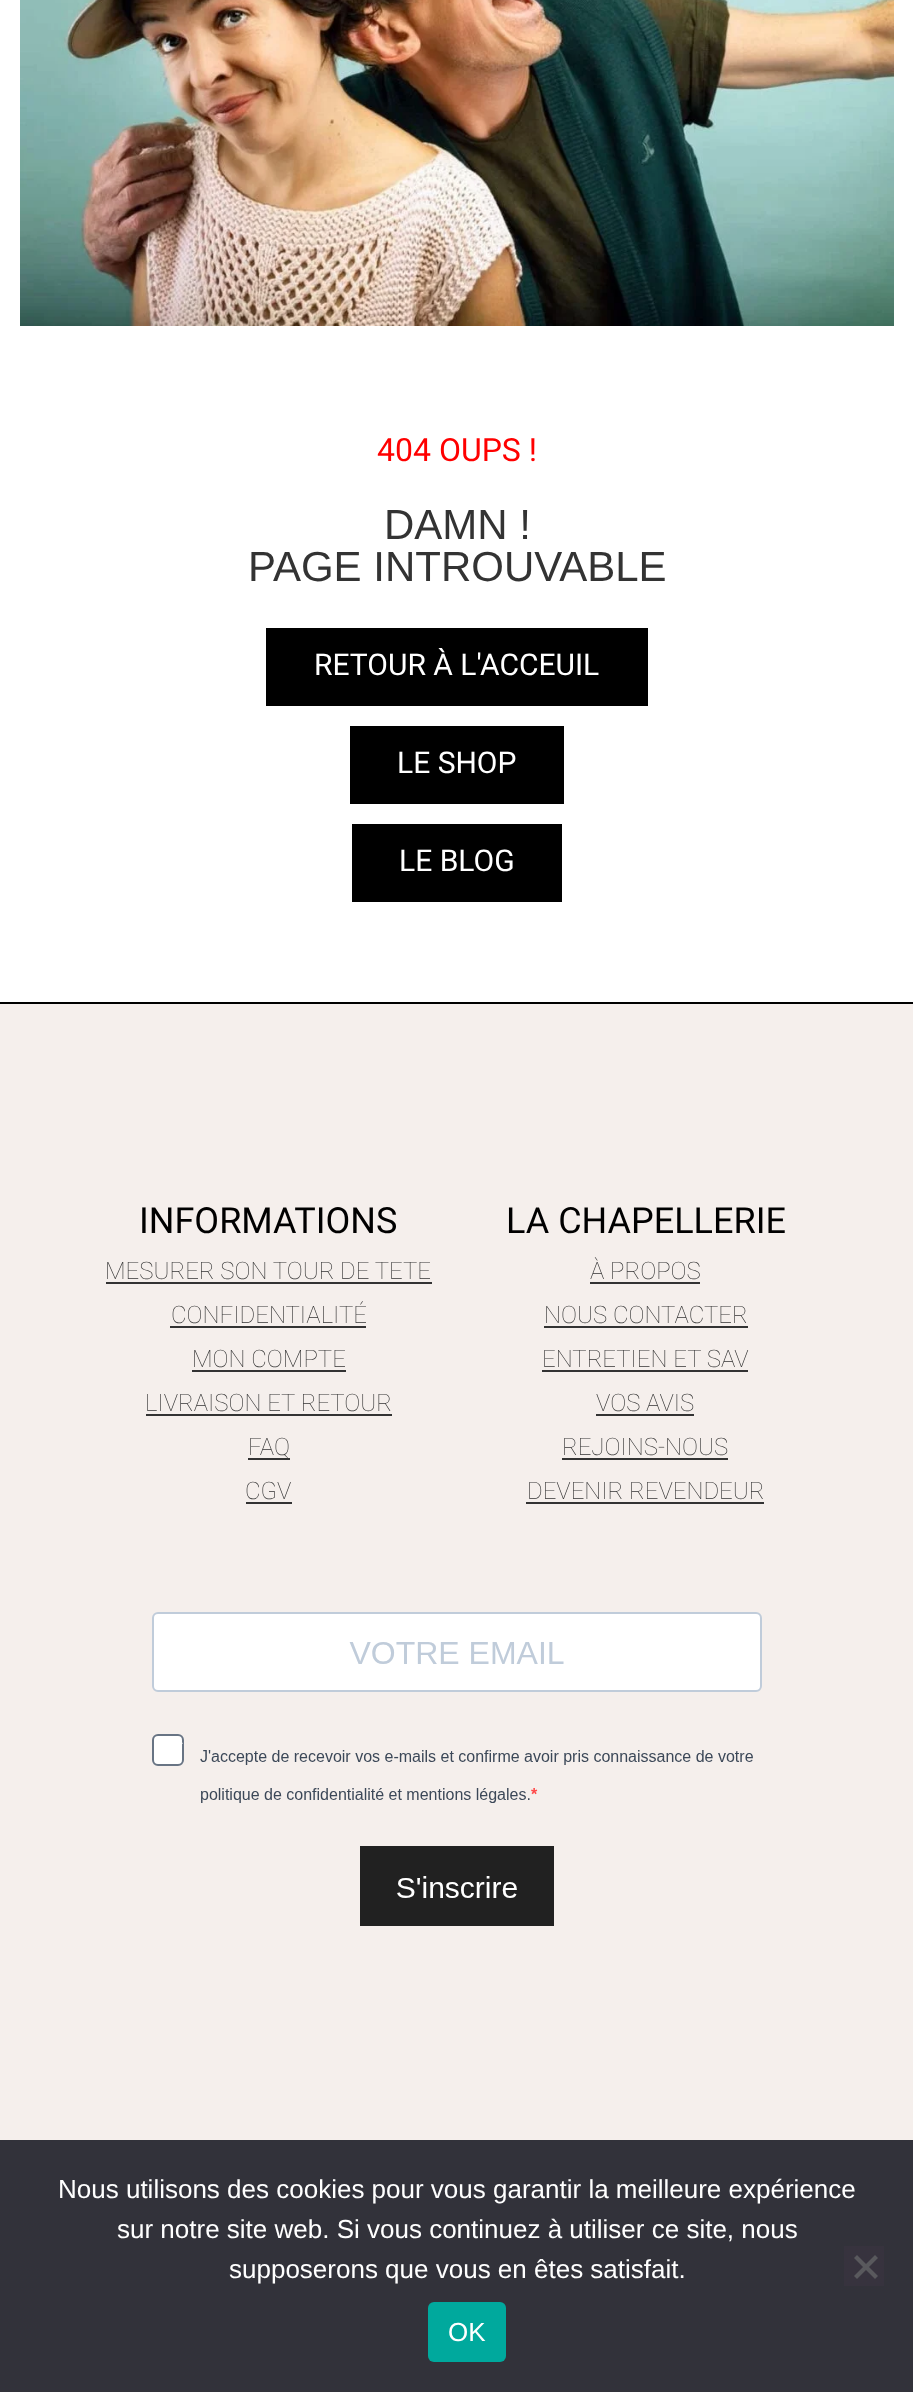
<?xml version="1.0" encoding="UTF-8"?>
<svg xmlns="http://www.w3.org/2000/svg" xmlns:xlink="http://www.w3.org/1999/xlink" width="913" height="2392">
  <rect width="100%" height="100%" fill="#ffffff" />
  <image x="20" y="0" width="874" height="326" xlink:href="image1.png" />
  <rect x="266" y="628" width="382" height="78" fill="#000000" />
  <rect x="350" y="726" width="214" height="78" fill="#000000" />
  <rect x="352" y="824" width="210" height="78" fill="#000000" />
  <rect y="1004" width="913" height="1136" fill="#f5efec" />
  <rect y="1002" width="913" height="2" fill="#000000" />
  <rect x="106" y="1282" width="326" height="2" fill="#333333" />
  <rect x="170" y="1326" width="196" height="2" fill="#333333" />
  <rect x="192" y="1370" width="154" height="2" fill="#333333" />
  <rect x="146" y="1414" width="246" height="2" fill="#333333" />
  <rect x="248" y="1458" width="42" height="2" fill="#333333" />
  <rect x="246" y="1502" width="46" height="2" fill="#333333" />
  <rect x="590" y="1282" width="110" height="2" fill="#333333" />
  <rect x="544" y="1326" width="204" height="2" fill="#333333" />
  <rect x="542" y="1370" width="206" height="2" fill="#333333" />
  <rect x="596" y="1414" width="98" height="2" fill="#333333" />
  <rect x="562" y="1458" width="166" height="2" fill="#333333" />
  <rect x="526" y="1502" width="238" height="2" fill="#333333" />
  <image x="152" y="1612" width="610" height="314" xlink:href="image2.png" />
  <rect y="2140" width="913" height="252" fill="#32323a" />
  <rect x="844" y="2246" width="40" height="40" fill="#37333e" />
  <path d="M 875 2255 l 3 3 l -21 21 l -3 -3 z" fill="#59595d" />
  <path d="M 854 2258 l 3 -3 l 21 21 l -3 3 z" fill="#59595d" />
  <rect x="428" y="2302" width="78" height="60" rx="6" fill="#00a99d" />
  <text x="377" y="461" style="font-family: Roboto; font-size: 32px; fill: #ff0000">404 OUPS !</text>
  <text x="384" y="539" style="font-family: Liberation Sans; font-size: 42px; fill: #333333">DAMN !</text>
  <text x="248" y="581" style="font-family: Liberation Sans; font-size: 42px; fill: #333333">PAGE INTROUVABLE</text>
  <text x="314" y="675" style="font-family: Roboto; font-size: 30px; fill: #ffffff">RETOUR À L'ACCEUIL</text>
  <text x="397" y="773" style="font-family: Roboto; font-size: 30px; fill: #ffffff">LE SHOP</text>
  <text x="399" y="871" style="font-family: Roboto; font-size: 30px; fill: #ffffff">LE BLOG</text>
  <text x="139" y="1233" style="font-family: Roboto; font-size: 36px; fill: #000000">INFORMATIONS</text>
  <text x="105" y="1279" style="font-family: Roboto; font-size: 24px; font-weight: 100; fill: #333333">MESURER SON TOUR DE TETE</text>
  <text x="171" y="1323" style="font-family: Roboto; font-size: 24px; font-weight: 100; fill: #333333">CONFIDENTIALITÉ</text>
  <text x="192" y="1367" style="font-family: Roboto; font-size: 24px; font-weight: 100; fill: #333333">MON COMPTE</text>
  <text x="145" y="1411" style="font-family: Roboto; font-size: 24px; font-weight: 100; fill: #333333">LIVRAISON ET RETOUR</text>
  <text x="248" y="1455" style="font-family: Roboto; font-size: 24px; font-weight: 100; fill: #333333">FAQ</text>
  <text x="245" y="1499" style="font-family: Roboto; font-size: 24px; font-weight: 100; fill: #333333">CGV</text>
  <text x="506" y="1233" style="font-family: Roboto; font-size: 36px; fill: #000000">LA CHAPELLERIE</text>
  <text x="590" y="1279" style="font-family: Roboto; font-size: 24px; font-weight: 100; fill: #333333">À PROPOS</text>
  <text x="544" y="1323" style="font-family: Roboto; font-size: 24px; font-weight: 100; fill: #333333">NOUS CONTACTER</text>
  <text x="542" y="1367" style="font-family: Roboto; font-size: 24px; font-weight: 100; fill: #333333">ENTRETIEN ET SAV</text>
  <text x="596" y="1411" style="font-family: Roboto; font-size: 24px; font-weight: 100; fill: #333333">VOS AVIS</text>
  <text x="562" y="1455" style="font-family: Roboto; font-size: 24px; font-weight: 100; fill: #333333">REJOINS-NOUS</text>
  <text x="527" y="1499" style="font-family: Roboto; font-size: 24px; font-weight: 100; fill: #333333">DEVENIR REVENDEUR</text>
  <text x="58" y="2198" style="font-family: Liberation Sans; font-size: 26px; fill: #ffffff">Nous utilisons des cookies pour vous garantir la meilleure expérience</text>
  <text x="117" y="2238" style="font-family: Liberation Sans; font-size: 26px; fill: #ffffff">sur notre site web. Si vous continuez à utiliser ce site, nous</text>
  <text x="229" y="2278" style="font-family: Liberation Sans; font-size: 26px; fill: #ffffff">supposerons que vous en êtes satisfait.</text>
  <text x="448" y="2341" style="font-family: Liberation Sans; font-size: 26px; fill: #ffffff">OK</text>
</svg>
